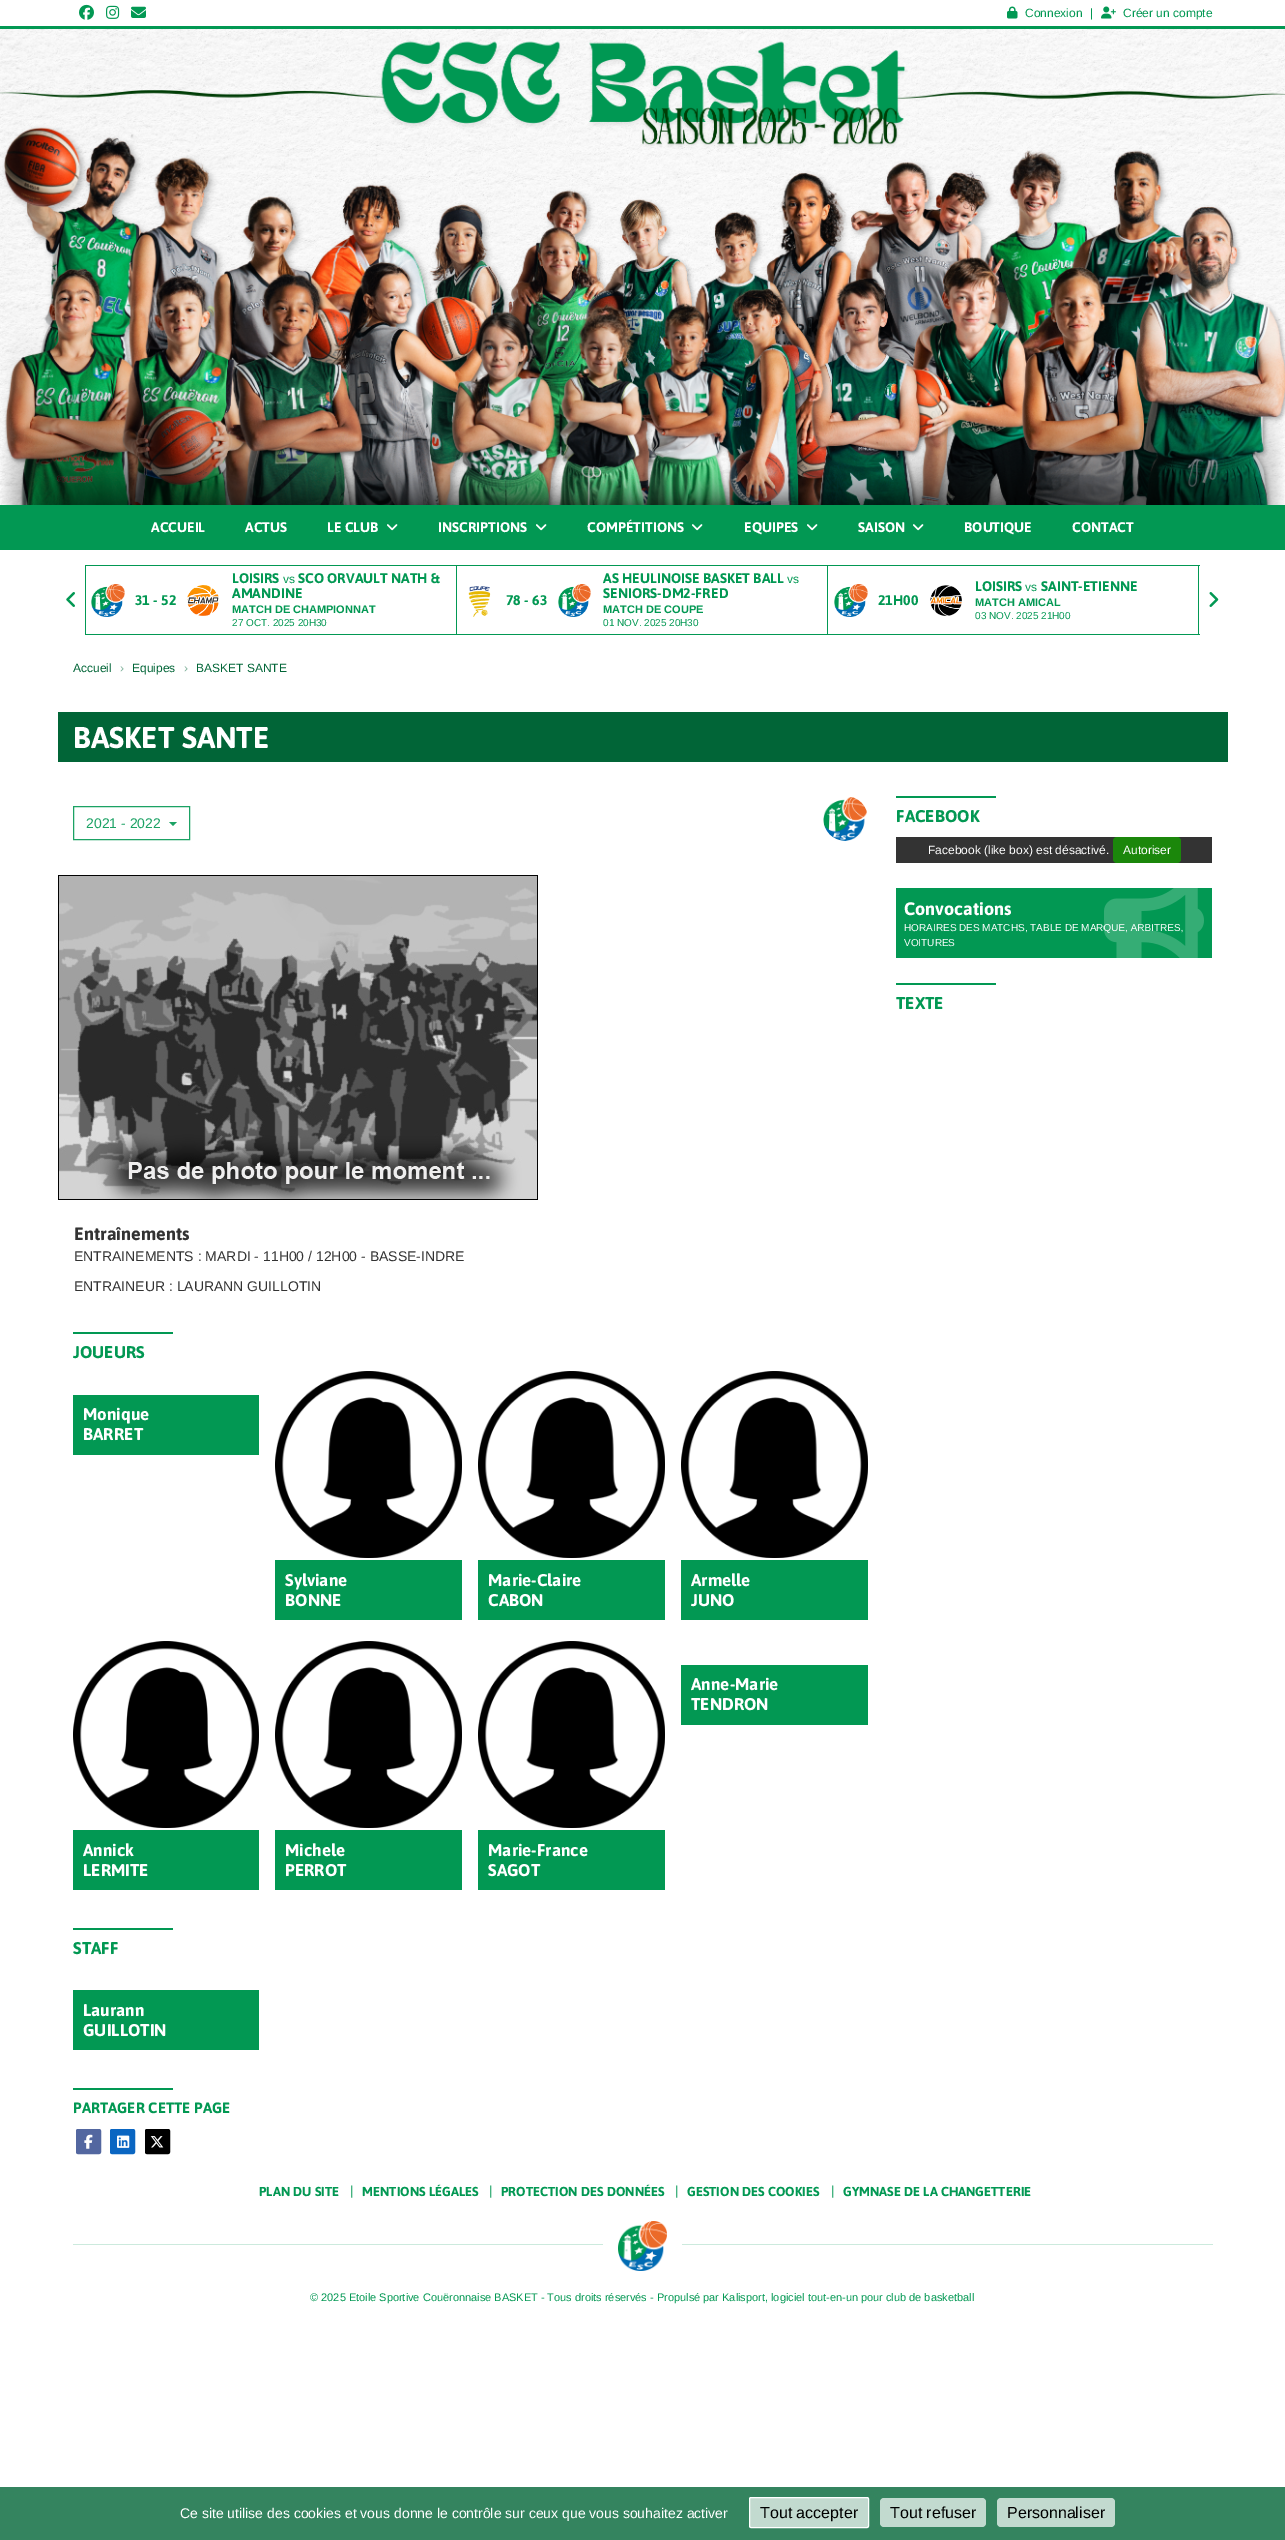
%!PS
<< /PageSize [1285 2540] >> setpagedevice
/rgb { 3 { 255 div 3 1 roll } repeat setrgbcolor } def
/font { [ exch dup neg 0 0 3 -1 roll 0 0 ] selectfont } def
/roundrect { 5 dict begin { /r /h /w /y /x } { exch def } forall
  x r add y moveto x w add y 2 copy h add r arct x w add y h add x 1 index r arct
  x y h add x y r arct x y 2 copy exch w add exch r arct closepath end } def
/picture { 5 dict begin { /h /w /y /x /name } { exch def } forall
  gsave x y translate w h scale
  w h 8 [w 0 0 h 0 0] name (r) file false 3 colorimage grestore end } def
0 2540 translate 1 -1 scale
4 setmiterlimit
255 255 255 rgb
0 0 1285 2540 rectfill
2 152 83 rgb
0 26 1285 3 rectfill
(img/1.rgb) 79 4 15 16 picture
(img/2.rgb) 106 5 14 14 picture
(img/3.rgb) 131 6 15 12 picture
(img/4.rgb) 1007 6 11 13 picture
(img/5.rgb) 1101 6 15 13 picture
(img/6.rgb) 0 29 1285 476 picture
0 505 1285 45 rectfill
(img/7.rgb) 387 524 11 7 picture
(img/7.rgb) 536 524 11 7 picture
(img/7.rgb) 692 524 11 7 picture
(img/7.rgb) 807 524 11 7 picture
(img/7.rgb) 913 524 11 7 picture
85 565 1 70 rectfill
(img/8.rgb) 66 592 9 15 picture
(img/9.rgb) 1209 592 10 15 picture
[
  [456 565 1 70 2 152 83]
  [86 565 370 1 2 152 83]
  [86 634 370 1 2 152 83]
] { aload pop rgb rectfill } forall
(img/10.rgb) 91 584 34 33 picture
(img/11.rgb) 187 585 32 31 picture
[
  [827 565 1 70 2 152 83]
  [457 565 370 1 2 152 83]
  [457 634 370 1 2 152 83]
] { aload pop rgb rectfill } forall
(img/12.rgb) 468 586 23 31 picture
(img/13.rgb) 558 584 33 33 picture
[
  [1198 565 1 70 2 152 83]
  [828 565 370 1 2 152 83]
  [828 634 370 1 2 152 83]
] { aload pop rgb rectfill } forall
(img/10.rgb) 834 584 34 33 picture
(img/14.rgb) 930 585 32 32 picture
[
  [1199 565 1 1 2 152 83]
  [1199 634 1 1 2 152 83]
  [58 712 1170 50 1 101 55]
] { aload pop rgb rectfill } forall
27 162 100 rgb
73.5 806.5 116 33 rectstroke
169 822 moveto 177 822 lineto 173 826 lineto closepath fill
(img/15.rgb) 823 797 44 44 picture
(img/16.rgb) 58 875 480 325 picture
2 152 83 rgb
73 1332 100 2 rectfill
73 1395 186 60 rectfill
(img/17.rgb) 275 1371 187 187 picture
275 1560 187 60 rectfill
(img/17.rgb) 478 1371 187 187 picture
478 1560 187 60 rectfill
(img/17.rgb) 681 1371 187 187 picture
681 1560 187 60 rectfill
681 1665 187 60 rectfill
(img/18.rgb) 73 1641 186 187 picture
73 1830 186 60 rectfill
(img/17.rgb) 275 1641 187 187 picture
275 1830 187 60 rectfill
(img/17.rgb) 478 1641 187 187 picture
[
  [478 1830 187 60 2 152 83]
  [73 1928 100 2 2 152 83]
  [73 1990 186 60 2 152 83]
  [73 2088 100 2 2 152 83]
] { aload pop rgb rectfill } forall
83 103 160 rgb
76.5 2129.5 24 24 1.5 roundrect gsave fill grestore
stroke
(img/19.rgb) 84 2134 9 15 picture
10 102 194 rgb
110.5 2129.5 24 24 1.5 roundrect gsave fill grestore
stroke
(img/20.rgb) 117 2135 13 13 picture
0 0 0 rgb
145.5 2129.5 24 24 1.5 roundrect gsave fill grestore
stroke
(img/21.rgb) 150 2136 14 12 picture
2 152 83 rgb
896 796 100 2 rectfill
51 51 51 rgb
896 837 316 26 rectfill
27 135 11 rgb
1113 837 68 26 4 roundrect fill
[
  [896 888 316 70 2 152 83]
  [896 983 100 2 2 152 83]
  [73 2244 1140 1 204 234 221]
  [603 2244 79 1 255 255 255]
] { aload pop rgb rectfill } forall
(img/23.rgb) 618 2221 49 50 picture
52 132 95 rgb
0 2487 1285 53 rectfill
194 218 207 rgb
749.5 2497.5 119 30 1.5 roundrect gsave fill grestore
255 255 255 rgb
stroke
194 218 207 rgb
880 2498 106 29 4 roundrect fill
997 2498 118 29 4 roundrect fill
/LiberationSans-Regular 12 font
2 152 83 rgb
[
  [(Connexion) 1025 17]
  [(|) 1090 17]
  [(Créer un compte) 1123 17]
] { aload pop moveto show } forall
/Asap-Bold 14 font
255 255 255 rgb
[
  [(ACCUEIL) 151 532]
  [(ACTUS) 245 532]
  [(LE CLUB) 327 532]
  [(INSCRIPTIONS) 438 532]
  [(COMPÉTITIONS) 587 532]
  [(EQUIPES) 744 532]
  [(SAISON) 858 532]
  [(BOUTIQUE) 964 532]
  [(CONTACT) 1072 532]
] { aload pop moveto show } forall
2 152 83 rgb
135 605 moveto (31 - 52) show
232 583 moveto (LOISIRS) show
/LiberationSans-Regular 12 font
283 583 moveto (vs) show
/Asap-Bold 14 font
298 583 moveto (SCO ORVAULT NATH &) show
232 598 moveto (AMANDINE) show
/LiberationSans-Bold 11 font
232 613 moveto (MATCH DE CHAMPIONNAT) show
/LiberationSans-Regular 10 font
232 626 moveto (27 OCT. 2025 20H30) show
/Asap-Bold 14 font
506 605 moveto (78 - 63) show
603 583 moveto (AS HEULINOISE BASKET BALL) show
/LiberationSans-Regular 12 font
787 583 moveto (vs) show
/Asap-Bold 14 font
603 598 moveto (SENIORS-DM2-FRED) show
/LiberationSans-Bold 11 font
603 613 moveto (MATCH DE COUPE) show
/LiberationSans-Regular 10 font
603 626 moveto (01 NOV. 2025 20H30) show
/Asap-Bold 14 font
878 605 moveto (21H00) show
975 591 moveto (LOISIRS) show
/LiberationSans-Regular 12 font
1025 591 moveto (vs) show
/Asap-Bold 14 font
1041 591 moveto (SAINT-ETIENNE) show
/LiberationSans-Bold 11 font
975 606 moveto (MATCH AMICAL) show
/LiberationSans-Regular 10 font
975 619 moveto (03 NOV. 2025 21H00) show
/LiberationSans-Regular 12 font
1 101 55 rgb
73 672 moveto (Accueil) show
128 178 155 rgb
120 672 moveto (›) show
1 101 55 rgb
132 672 moveto (Equipes) show
128 178 155 rgb
184 672 moveto (›) show
1 101 55 rgb
196 672 moveto (BASKET SANTE) show
/Asap-Bold 30 font
255 255 255 rgb
73 748 moveto (BASKET SANTE) show
/LiberationSans-Regular 14 font
27 162 100 rgb
86 828 moveto (2021 - 2022) show
/Asap-Bold 18 font
51 51 51 rgb
74 1240 moveto (Entraînements) show
/LiberationSans-Regular 14 font
74 1261 moveto (ENTRAINEMENTS : MARDI - 11H00 / 12H00 - BASSE-INDRE) show
74 1291 moveto (ENTRAINEUR : LAURANN GUILLOTIN) show
/Asap-Bold 17 font
2 152 83 rgb
73 1358 moveto (JOUEURS) show
255 255 255 rgb
[
  [(Monique) 83 1420]
  [(BARRET) 83 1440]
  [(Sylviane) 285 1586]
  [(BONNE) 285 1606]
  [(Marie-Claire) 488 1586]
  [(CABON) 488 1606]
  [(Armelle) 691 1586]
  [(JUNO) 691 1606]
  [(Anne-Marie) 691 1690]
  [(TENDRON) 691 1710]
  [(Annick) 83 1856]
  [(LERMITE) 83 1876]
  [(Michele) 285 1856]
  [(PERROT) 285 1876]
  [(Marie-France) 488 1856]
  [(SAGOT) 488 1876]
] { aload pop moveto show } forall
2 152 83 rgb
73 1954 moveto (STAFF) show
255 255 255 rgb
83 2016 moveto (Laurann) show
83 2036 moveto (GUILLOTIN) show
/Asap-Bold 15 font
2 152 83 rgb
73 2113 moveto (PARTAGER CETTE PAGE) show
/Asap-Bold 17 font
896 822 moveto (FACEBOOK) show
/LiberationSans-Regular 12 font
255 255 255 rgb
928 854 moveto (Facebook \(like box\) est désactivé.) show
1123 854 moveto (Autoriser) show
/Asap-Bold 18 font
904 915 moveto (Convocations) show
/LiberationSans-Regular 10 font
904 931 moveto (HORAIRES DES MATCHS, TABLE DE MARQUE, ARBITRES,) show
(img/22.rgb) 1104 888 100 70 picture
904 946 moveto (VOITURES) show
/Asap-Bold 17 font
2 152 83 rgb
896 1009 moveto (TEXTE) show
/Asap-Bold 13 font
259 2196 moveto (PLAN DU SITE) show
/LiberationSans-Regular 13 font
350 2195 moveto (|) show
/Asap-Bold 13 font
362 2196 moveto (MENTIONS LÉGALES) show
/LiberationSans-Regular 13 font
489 2195 moveto (|) show
/Asap-Bold 13 font
501 2196 moveto (PROTECTION DES DONNÉES) show
/LiberationSans-Regular 13 font
675 2195 moveto (|) show
/Asap-Bold 13 font
687 2196 moveto (GESTION DES COOKIES) show
/LiberationSans-Regular 13 font
831 2195 moveto (|) show
/Asap-Bold 13 font
843 2196 moveto (GYMNASE DE LA CHANGETTERIE) show
/LiberationSans-Regular 11 font
310 2301 moveto (© 2025 Etoile Sportive Couëronnaise BASKET - Tous droits réservés - Propulsé par Kalisport, logiciel tout-en-un pour club de basketball) show
/LiberationSans-Regular 14 font
255 255 255 rgb
180 2518 moveto (Ce site utilise des cookies et vous donne le contrôle sur ceux que vous souhaitez activer) show
/LiberationSans-Regular 16 font
0 0 0 rgb
[
  [(Tout accepter) 760 2518]
  [(Tout refuser) 890 2518]
  [(Personnaliser) 1007 2518]
] { aload pop moveto show } forall
showpage
